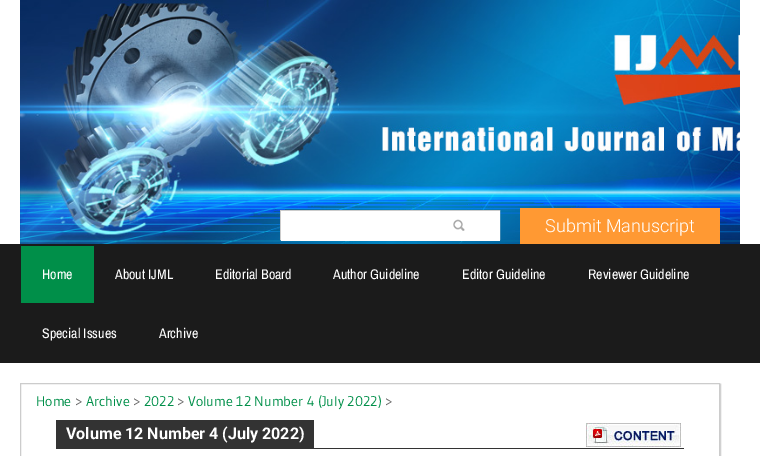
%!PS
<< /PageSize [760 456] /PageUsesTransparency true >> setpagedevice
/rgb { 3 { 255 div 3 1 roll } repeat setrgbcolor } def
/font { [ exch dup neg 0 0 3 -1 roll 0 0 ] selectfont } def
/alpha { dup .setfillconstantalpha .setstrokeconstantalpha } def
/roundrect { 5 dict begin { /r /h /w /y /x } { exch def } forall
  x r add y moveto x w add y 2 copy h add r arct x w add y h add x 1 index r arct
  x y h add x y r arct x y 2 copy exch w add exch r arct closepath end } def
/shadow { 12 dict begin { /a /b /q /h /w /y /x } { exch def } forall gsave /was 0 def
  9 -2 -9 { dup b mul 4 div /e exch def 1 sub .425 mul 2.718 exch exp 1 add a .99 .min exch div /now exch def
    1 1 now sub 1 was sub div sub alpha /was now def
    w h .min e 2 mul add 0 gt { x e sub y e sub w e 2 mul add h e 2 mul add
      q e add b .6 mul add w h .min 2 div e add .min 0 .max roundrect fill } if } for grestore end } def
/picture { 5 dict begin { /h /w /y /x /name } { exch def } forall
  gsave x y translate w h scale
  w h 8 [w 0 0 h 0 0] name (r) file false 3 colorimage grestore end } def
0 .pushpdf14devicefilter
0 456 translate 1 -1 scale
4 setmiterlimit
255 255 255 rgb
0 0 760 456 rectfill
(img/1.rgb) 20 0 720 244 picture
204 204 204 rgb
280.5 210.5 219 29 rectstroke
255 255 255 rgb
281 211 219 30 rectfill
(img/2.rgb) 453 219 12 12 picture
[
  [520 208 200 36 255 153 51]
  [0 244 760 119 27 27 27]
  [21 246 73 57 0 143 73]
] { aload pop rgb rectfill } forall
gsave
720 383 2 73 rectclip
204 204 204 rgb
21 384 700 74 0 0.5 1 shadow
grestore
204 204 204 rgb
20.5 383.5 699 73 rectstroke
51 51 51 rgb
56 420 258 28 rectfill
(img/3.rgb) 586 423 95 24 picture
56 448 628 1 rectfill
/Roboto-Light 18 font
255 255 255 rgb
545 232 moveto (Submit Manuscript) show
/ArchivoNarrow-Regular 14 font
[
  [(Home) 42 279]
  [(About IJML) 115 279]
  [(Editorial Board) 215 279]
  [(Author Guideline) 333 279]
  [(Editor Guideline) 462 279]
  [(Reviewer Guideline) 588 279]
  [(Special Issues) 42 338]
  [(Archive) 159 338]
] { aload pop moveto show } forall
/Gudea-Regular 14 font
0 143 73 rgb
36 406 moveto (Home) show
101 101 101 rgb
75 406 moveto (>) show
0 143 73 rgb
86 406 moveto (Archive) show
101 101 101 rgb
133 406 moveto (>) show
0 143 73 rgb
144 406 moveto (2022) show
101 101 101 rgb
177 406 moveto (>) show
0 143 73 rgb
188 406 moveto (Volume 12 Number 4 \(July 2022\)) show
101 101 101 rgb
385 406 moveto (>) show
/Roboto-Bold 16 font
255 255 255 rgb
66 439 moveto (Volume 12 Number 4 \(July 2022\)) show
.poppdf14devicefilter showpage
